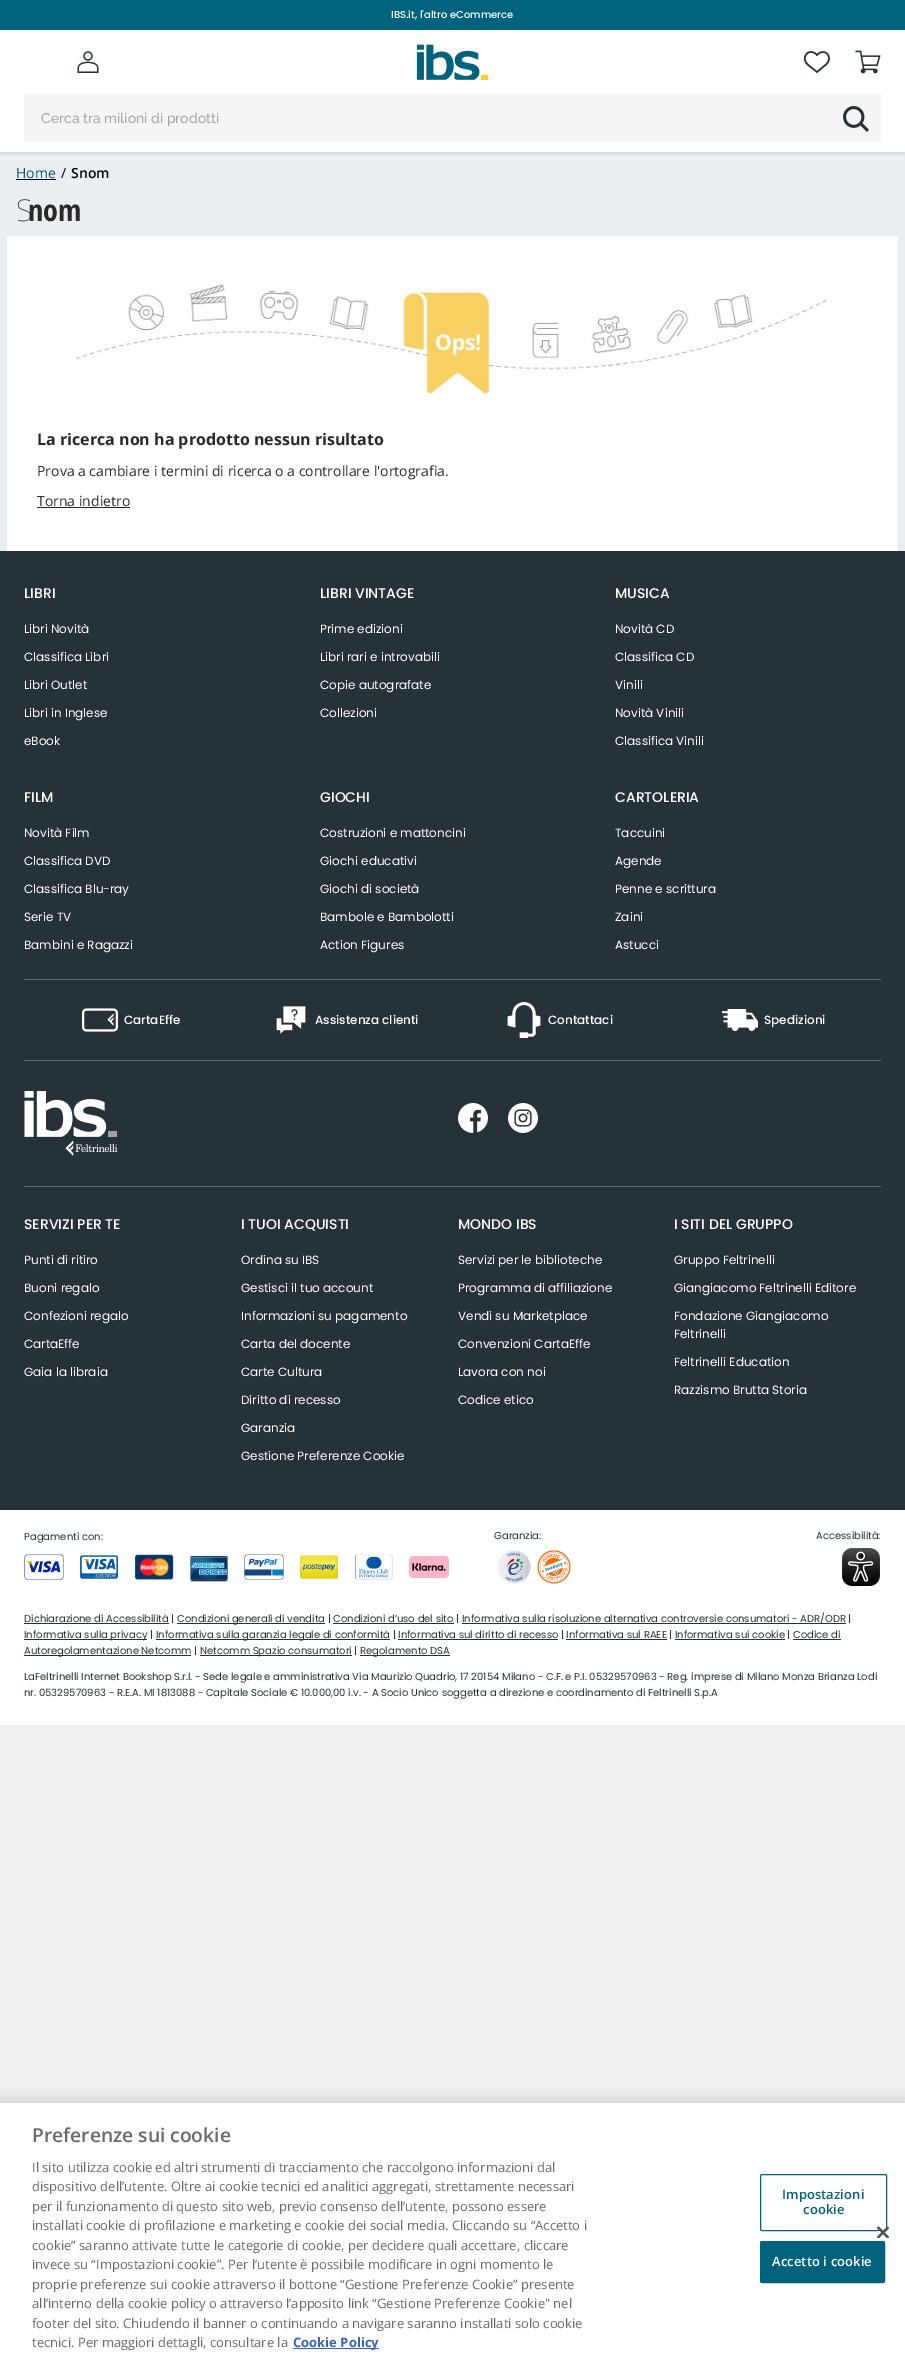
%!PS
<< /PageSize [905 2363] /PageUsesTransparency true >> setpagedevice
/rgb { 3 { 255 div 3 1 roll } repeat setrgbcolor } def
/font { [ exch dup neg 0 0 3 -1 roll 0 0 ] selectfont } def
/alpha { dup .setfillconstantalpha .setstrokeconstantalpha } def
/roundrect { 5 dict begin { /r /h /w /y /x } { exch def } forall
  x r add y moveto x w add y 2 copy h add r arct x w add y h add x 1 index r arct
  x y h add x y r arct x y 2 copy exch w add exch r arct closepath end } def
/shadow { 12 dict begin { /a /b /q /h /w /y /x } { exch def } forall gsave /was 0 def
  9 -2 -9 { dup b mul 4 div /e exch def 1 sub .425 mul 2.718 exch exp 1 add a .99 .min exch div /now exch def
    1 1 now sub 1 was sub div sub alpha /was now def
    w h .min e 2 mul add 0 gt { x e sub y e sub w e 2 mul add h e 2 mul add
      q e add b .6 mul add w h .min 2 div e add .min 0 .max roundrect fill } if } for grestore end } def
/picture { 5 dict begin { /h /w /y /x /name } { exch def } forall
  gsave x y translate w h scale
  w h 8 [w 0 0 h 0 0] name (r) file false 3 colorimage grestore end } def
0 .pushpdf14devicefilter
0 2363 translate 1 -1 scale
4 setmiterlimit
241 241 241 rgb
0 0 905 2363 rectfill
255 255 255 rgb
0 30 905 122 rectfill
235 238 240 rgb
0 152 905 399 rectfill
gsave
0 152 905 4 rectclip
0 0 0 rgb
0 2 905 152 0 2 0.1 shadow
grestore
0 98 125 rgb
0 0 905 30 rectfill
(img/1.rgb) 77 51 22 22 picture
(img/2.rgb) 416 44 72 36 picture
38 50 56 rgb
1.5 setlinewidth
817 72 moveto 814 69.5 808 65.5 806 62.5 curveto 801.5 55 810.5 47.5 817 55 curveto 824.5 46.5 834.5 57.5 825.5 65 curveto closepath stroke
(img/3.rgb) 855 50 26 24 picture
245 245 245 rgb
24 94 857 48 rectfill
(img/4.rgb) 843 106 26 26 picture
0 0 0 rgb
16 179 40 1 rectfill
255 255 255 rgb
7 236 891 315 rectfill
(img/5.rgb) 76 284 754 111 picture
[
  [37 507 93 1 41 41 41]
  [0 551 905 959 38 50 56]
  [24 979 857 1 97 109 114]
  [24 1060 857 1 97 109 114]
] { aload pop rgb rectfill } forall
(img/6.rgb) 82 1008 36 24 picture
(img/7.rgb) 276 1006 30 28 picture
(img/8.rgb) 507 1002 34 36 picture
(img/9.rgb) 722 1009 36 22 picture
24 1186 857 1 rectfill
(img/10.rgb) 24 1091 94 65 picture
(img/11.rgb) 458 1103 30 30 picture
(img/12.rgb) 508 1103 30 30 picture
255 255 255 rgb
0 1510 905 215 rectfill
(img/13.rgb) 24 1554 40 26 picture
(img/14.rgb) 80 1555 38 24 picture
(img/15.rgb) 134 1554 40 26 picture
(img/16.rgb) 190 1555 38 27 picture
(img/17.rgb) 244 1554 40 26 picture
(img/18.rgb) 300 1555 38 24 picture
(img/19.rgb) 354 1554 39 26 picture
(img/20.rgb) 409 1556 40 22 picture
(img/21.rgb) 497 1550 74 34 picture
(img/22.rgb) 841 1547 40 40 picture
[
  [24 1623 145 1 38 50 56]
  [177 1623 148 1 38 50 56]
  [462 1623 384 1 38 50 56]
  [333 1623 121 1 38 50 56]
  [24 1639 123 1 38 50 56]
  [156 1639 234 1 38 50 56]
  [398 1639 160 1 38 50 56]
  [566 1639 101 1 38 50 56]
  [675 1639 110 1 38 50 56]
  [793 1639 48 1 38 50 56]
  [24 1655 167 1 38 50 56]
  [200 1655 152 1 38 50 56]
  [360 1655 90 1 38 50 56]
] { aload pop rgb rectfill } forall
0 0 0 rgb
0 2103 905 260 0 9 0.2 shadow
255 255 255 rgb
0 2103 905 260 rectfill
56 96 190 rgb
293 2348 86 1 rectfill
0 98 125 rgb
1 setlinewidth
760.5 2174.5 126 56 1.5 roundrect stroke
760.5 2241.5 124 41 1.5 roundrect gsave fill grestore
stroke
(img/23.rgb) 877 2226 12 12 picture
/Poppins-Medium 10 font
255 255 255 rgb
391 18 moveto (IBS.it, l'altro eCommerce) show
/Raleway-Medium 14 font
162 167 169 rgb
41 123 moveto (Cerca tra milioni di prodotti) show
/OpenSans-Regular 14 font
6 91 108 rgb
16 178 moveto (Home) show
0 0 0 rgb
61 178 moveto (/) show
/OpenSans-SemiBold 14 font
71 178 moveto (Snom) show
/NotoSans-Thin 30 font
41 41 41 rgb
16 221 moveto (S) show
/OpenSansCondensed-Bold 30 font
28 221 moveto (nom) show
/OpenSans-Bold 16 font
37 445 moveto (La ricerca non ha prodotto nessun risultato) show
/OpenSans-Regular 14 font
37 476 moveto (Prova a cambiare i termini di ricerca o a controllare l'ortografia.) show
37 506 moveto (Torna indietro) show
/Poppins-Medium 14 font
255 255 255 rgb
24 598 moveto (LIBRI) show
/Poppins-Regular 12 font
[
  [(Libri Novità) 24 633]
  [(Classifica Libri) 24 661]
  [(Libri Outlet) 24 689]
  [(Libri in Inglese) 24 717]
  [(eBook) 24 745]
] { aload pop moveto show } forall
/Poppins-Medium 14 font
320 598 moveto (LIBRI VINTAGE) show
/Poppins-Regular 12 font
[
  [(Prime edizioni) 320 633]
  [(Libri rari e introvabili) 320 661]
  [(Copie autografate) 320 689]
  [(Collezioni) 320 717]
] { aload pop moveto show } forall
/Poppins-Medium 14 font
615 598 moveto (MUSICA) show
/Poppins-Regular 12 font
[
  [(Novità CD) 615 633]
  [(Classifica CD) 615 661]
  [(Vinili) 615 689]
  [(Novità Vinili) 615 717]
  [(Classifica Vinili) 615 745]
] { aload pop moveto show } forall
/Poppins-Medium 14 font
24 802 moveto (FILM) show
/Poppins-Regular 12 font
[
  [(Novità Film) 24 837]
  [(Classifica DVD) 24 865]
  [(Classifica Blu-ray) 24 893]
  [(Serie TV) 24 921]
  [(Bambini e Ragazzi) 24 949]
] { aload pop moveto show } forall
/Poppins-Medium 14 font
320 802 moveto (GIOCHI) show
/Poppins-Regular 12 font
[
  [(Costruzioni e mattoncini) 320 837]
  [(Giochi educativi) 320 865]
  [(Giochi di società) 320 893]
  [(Bambole e Bambolotti) 320 921]
  [(Action Figures) 320 949]
] { aload pop moveto show } forall
/Poppins-Medium 14 font
615 802 moveto (CARTOLERIA) show
/Poppins-Regular 12 font
[
  [(Taccuini) 615 837]
  [(Agende) 615 865]
  [(Penne e scrittura) 615 893]
  [(Zaini) 615 921]
  [(Astucci) 615 949]
] { aload pop moveto show } forall
/Poppins-Medium 12 font
[
  [(CartaEffe) 124 1024]
  [(Assistenza clienti) 315 1024]
  [(Contattaci) 548 1024]
  [(Spedizioni) 764 1024]
] { aload pop moveto show } forall
/Poppins-Medium 14 font
24 1229 moveto (SERVIZI PER TE) show
/Poppins-Regular 12 font
[
  [(Punti di ritiro) 24 1264]
  [(Buoni regalo) 24 1292]
  [(Confezioni regalo) 24 1320]
  [(CartaEffe) 24 1348]
  [(Gaia la libraia) 24 1376]
] { aload pop moveto show } forall
/Poppins-Medium 14 font
241 1229 moveto (I TUOI ACQUISTI) show
/Poppins-Regular 12 font
[
  [(Ordina su IBS) 241 1264]
  [(Gestisci il tuo account) 241 1292]
  [(Informazioni su pagamento) 241 1320]
  [(Carta del docente) 241 1348]
  [(Carte Cultura) 241 1376]
  [(Diritto di recesso) 241 1404]
  [(Garanzia) 241 1432]
  [(Gestione Preferenze Cookie) 241 1460]
] { aload pop moveto show } forall
/Poppins-Medium 14 font
458 1229 moveto (MONDO IBS) show
/Poppins-Regular 12 font
[
  [(Servizi per le biblioteche) 458 1264]
  [(Programma di affiliazione) 458 1292]
  [(Vendi su Marketplace) 458 1320]
  [(Convenzioni CartaEffe) 458 1348]
  [(Lavora con noi) 458 1376]
  [(Codice etico) 458 1404]
] { aload pop moveto show } forall
/Poppins-Medium 14 font
674 1229 moveto (I SITI DEL GRUPPO) show
/Poppins-Regular 12 font
[
  [(Gruppo Feltrinelli) 674 1264]
  [(Giangiacomo Feltrinelli Editore) 674 1292]
  [(Fondazione Giangiacomo) 674 1320]
  [(Feltrinelli) 674 1338]
  [(Feltrinelli Education) 674 1366]
  [(Razzismo Brutta Storia) 674 1394]
] { aload pop moveto show } forall
/Poppins-Regular 10 font
38 50 56 rgb
[
  [(Pagamenti con:) 24 1540]
  [(Garanzia:) 494 1539]
  [(Accessibilità:) 816 1539]
  [(Dichiarazione di Accessibilità |) 24 1622]
  [(Condizioni generali di vendita | Condizioni d’uso del sito |) 177 1622]
  [(Informativa sulla risoluzione alternativa controversie consumatori - ADR/ODR |) 462 1622]
  [(Informativa sulla privacy |) 24 1638]
  [(Informativa sulla garanzia legale di conformità | Informativa sul diritto di recesso | Informativa sul RAEE | Informativa sui cookie | Codice di) 156 1638]
  [(Autoregolamentazione Netcomm |) 24 1654]
  [(Netcomm Spazio consumatori |) 200 1654]
  [(Regolamento DSA) 360 1654]
  [(LaFeltrinelli Internet Bookshop S.r.l. - Sede legale e amministrativa Via Maurizio Quadrio, 17 20154 Milano - C.F. e P.I. 05329570963 - Reg. imprese di Milano Monza Brianza Lodi) 24 1680]
  [(nr. 05329570963 - R.E.A. MI 1813088 - Capitale Sociale € 10.000,00 i.v. - A Socio Unico soggetta a direzione e coordinamento di Feltrinelli S.p.A) 24 1696]
] { aload pop moveto show } forall
/OpenSans-SemiBold 19.25 font
105 105 105 rgb
32 2142 moveto (Preferenze sui cookie) show
/OpenSans-Regular 13 font
[
  [(Il sito utilizza cookie ed altri strumenti di tracciamento che raccolgono informazioni dal) 32 2172]
  [(dispositivo dell’utente. Oltre ai cookie tecnici ed analitici aggregati, strettamente necessari) 32 2191]
  [(per il funzionamento di questo sito web, previo consenso dell’utente, possono essere) 32 2211]
  [(installati cookie di profilazione e marketing e cookie dei social media. Cliccando su “Accetto i) 32 2230]
  [(cookie” saranno attivate tutte le categorie di cookie, per decidere quali accettare, cliccare) 32 2250]
  [(invece su “Impostazioni cookie”. Per l’utente è possibile modificare in ogni momento le) 32 2269]
  [(proprie preferenze sui cookie attraverso il bottone “Gestione Preferenze Cookie” presente) 32 2289]
  [(all’interno della cookie policy o attraverso l’apposito link “Gestione Preferenze Cookie" nel) 32 2308]
  [(footer del sito. Chiudendo il banner o continuando a navigare saranno installati solo cookie) 32 2328]
  [(tecnici. Per maggiori dettagli, consultare la) 32 2347]
] { aload pop moveto show } forall
/OpenSans-Bold 13 font
56 96 190 rgb
293 2347 moveto (Cookie Policy) show
/OpenSans-SemiBold 13 font
0 98 125 rgb
782 2199 moveto 0.1 0 (Impostazioni) ashow
803 2214 moveto 0.1 0 (cookie) ashow
255 255 255 rgb
772 2266 moveto 0.1 0 (Accetto i cookie) ashow
.poppdf14devicefilter showpage
